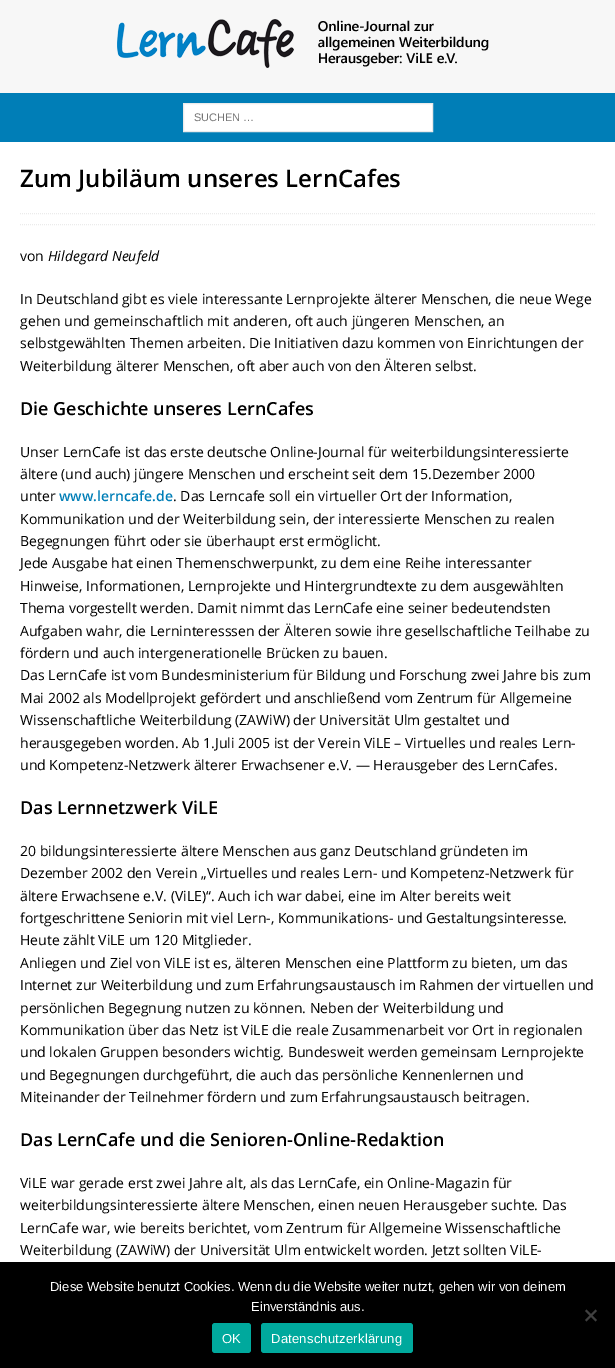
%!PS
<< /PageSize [615 1368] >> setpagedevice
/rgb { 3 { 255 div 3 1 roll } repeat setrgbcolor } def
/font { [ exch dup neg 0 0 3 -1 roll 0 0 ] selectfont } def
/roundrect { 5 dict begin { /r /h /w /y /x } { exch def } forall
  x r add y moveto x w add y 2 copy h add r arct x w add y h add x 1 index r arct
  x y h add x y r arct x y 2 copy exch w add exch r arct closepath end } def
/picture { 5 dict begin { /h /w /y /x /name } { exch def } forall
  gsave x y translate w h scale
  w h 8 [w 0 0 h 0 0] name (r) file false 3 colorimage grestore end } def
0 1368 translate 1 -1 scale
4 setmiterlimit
247 247 247 rgb
0 0 615 1368 rectfill
(img/1.rgb) 117 19 372 49 picture
0 126 183 rgb
0 93 615 49 rectfill
255 255 255 rgb
183.5 103.5 moveto 432.5 103.5 lineto 432.5 131.5 lineto 183.5 131.5 lineto closepath gsave fill grestore
235 235 235 rgb
stroke
255 255 255 rgb
0 142 615 1120 rectfill
235 235 235 rgb
[1 1] 0 setdash
20 213.5 moveto 595 213.5 lineto stroke
20 224.5 moveto 595 224.5 lineto stroke
0 0 0 rgb
0 1262 615 106 rectfill
64 64 64 rgb
595.5 1309.5 moveto 597 1311 lineto 586.5 1321.5 lineto 585 1320 lineto closepath fill
585 1311 moveto 586.5 1309.5 lineto 597 1320 lineto 595.5 1321.5 lineto closepath fill
0 169 157 rgb
212 1323 39 30 3 roundrect fill
261 1323 152 30 3 roundrect fill
/LiberationSans-Regular 11 font
117 117 117 rgb
194 121 moveto (SUCHEN …) show
/OpenSans-SemiBold 24 font
0 0 0 rgb
20 187 moveto (Zum Jubiläum unseres LernCafes) show
/OpenSans-Regular 14 font
20 261 moveto (von) show
/OpenSans-Italic 14 font
48 261 moveto (Hildegard Neufeld) show
/OpenSans-Regular 14 font
[
  [(In Deutschland gibt es viele interessante Lernprojekte älterer Menschen, die neue Wege) 20 304]
  [(gehen und gemeinschaftlich mit anderen, oft auch jüngeren Menschen, an) 20 326]
  [(selbstgewählten Themen arbeiten. Die Initiativen dazu kommen von Einrichtungen der) 20 348]
  [(Weiterbildung älterer Menschen, oft aber auch von den Älteren selbst.) 20 371]
] { aload pop moveto show } forall
/OpenSans-SemiBold 18 font
20 415 moveto (Die Geschichte unseres LernCafes) show
/OpenSans-Regular 14 font
[
  [(Unser LernCafe ist das erste deutsche Online-Journal für weiterbildungsinteressierte) 20 457]
  [(ältere \(und auch\) jüngere Menschen und erscheint seit dem 15.Dezember 2000) 20 479]
  [(unter) 20 501]
] { aload pop moveto show } forall
/OpenSans-SemiBold 14 font
0 126 183 rgb
59 501 moveto (www.lerncafe.de) show
/OpenSans-Regular 14 font
0 0 0 rgb
[
  [(. Das Lerncafe soll ein virtueller Ort der Information,) 173 501]
  [(Kommunikation und der Weiterbildung sein, der interessierte Menschen zu realen) 20 524]
  [(Begegnungen führt oder sie überhaupt erst ermöglicht.) 20 546]
  [(Jede Ausgabe hat einen Themenschwerpunkt, zu dem eine Reihe interessanter) 20 568]
  [(Hinweise, Informationen, Lernprojekte und Hintergrundtexte zu dem ausgewählten) 20 591]
  [(Thema vorgestellt werden. Damit nimmt das LernCafe eine seiner bedeutendsten) 20 613]
  [(Aufgaben wahr, die Lerninteresssen der Älteren sowie ihre gesellschaftliche Teilhabe zu) 20 636]
  [(fördern und auch intergenerationelle Brücken zu bauen.) 20 658]
  [(Das LernCafe ist vom Bundesministerium für Bildung und Forschung zwei Jahre bis zum) 20 680]
  [(Mai 2002 als Modellprojekt gefördert und anschließend vom Zentrum für Allgemeine) 20 703]
  [(Wissenschaftliche Weiterbildung \(ZAWiW\) der Universität Ulm gestaltet und) 20 725]
  [(herausgegeben worden. Ab 1.Juli 2005 ist der Verein ViLE – Virtuelles und reales Lern-) 20 748]
  [(und Kompetenz-Netzwerk älterer Erwachsener e.V. — Herausgeber des LernCafes.) 20 770]
] { aload pop moveto show } forall
/OpenSans-SemiBold 18 font
20 814 moveto (Das Lernnetzwerk ViLE) show
/OpenSans-Regular 14 font
[
  [(20 bildungsinteressierte ältere Menschen aus ganz Deutschland gründeten im) 20 856]
  [(Dezember 2002 den Verein „Virtuelles und reales Lern- und Kompetenz-Netzwerk für) 20 878]
  [(ältere Erwachsene e.V. \(ViLE\)“. Auch ich war dabei, eine im Alter bereits weit) 20 901]
  [(fortgeschrittene Seniorin mit viel Lern-, Kommunikations- und Gestaltungsinteresse.) 20 923]
  [(Heute zählt ViLE um 120 Mitglieder.) 20 945]
  [(Anliegen und Ziel von ViLE ist es, älteren Menschen eine Plattform zu bieten, um das) 20 968]
  [(Internet zur Weiterbildung und zum Erfahrungsaustausch im Rahmen der virtuellen und) 20 990]
  [(persönlichen Begegnung nutzen zu können. Neben der Weiterbildung und) 20 1013]
  [(Kommunikation über das Netz ist ViLE die reale Zusammenarbeit vor Ort in regionalen) 20 1035]
  [(und lokalen Gruppen besonders wichtig. Bundesweit werden gemeinsam Lernprojekte) 20 1057]
  [(und Begegnungen durchgeführt, die auch das persönliche Kennenlernen und) 20 1080]
  [(Miteinander der Teilnehmer fördern und zum Erfahrungsaustausch beitragen.) 20 1102]
] { aload pop moveto show } forall
/OpenSans-SemiBold 18 font
20 1146 moveto (Das LernCafe und die Senioren-Online-Redaktion) show
/OpenSans-Regular 14 font
[
  [(ViLE war gerade erst zwei Jahre alt, als das LernCafe, ein Online-Magazin für) 20 1188]
  [(weiterbildungsinteressierte ältere Menschen, einen neuen Herausgeber suchte. Das) 20 1210]
  [(LernCafe war, wie bereits berichtet, vom Zentrum für Allgemeine Wissenschaftliche) 20 1233]
  [(Weiterbildung \(ZAWiW\) der Universität Ulm entwickelt worden. Jetzt sollten ViLE-) 20 1255]
] { aload pop moveto show } forall
/LiberationSans-Regular 13 font
255 255 255 rgb
50 1291 moveto (Diese Website benutzt Cookies. Wenn du die Website weiter nutzt, gehen wir von deinem) show
251 1311 moveto (Einverständnis aus.) show
222 1343 moveto 0.25 0 (OK) ashow
271 1343 moveto 0.25 0 (Datenschutzerklärung) ashow
showpage
